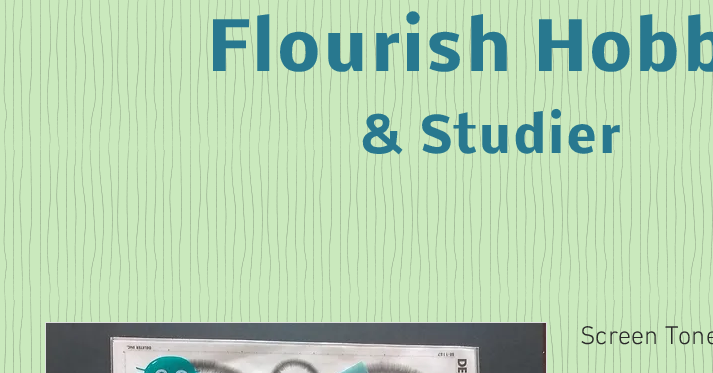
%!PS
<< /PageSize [713 373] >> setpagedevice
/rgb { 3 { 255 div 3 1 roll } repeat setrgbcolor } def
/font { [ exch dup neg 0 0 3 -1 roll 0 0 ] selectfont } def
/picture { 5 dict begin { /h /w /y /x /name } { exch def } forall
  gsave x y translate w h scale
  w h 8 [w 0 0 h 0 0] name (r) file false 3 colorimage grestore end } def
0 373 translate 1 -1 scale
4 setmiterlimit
202 233 189 rgb
0 0 713 373 rectfill
(img/1.rgb) 3 0 710 373 picture
221 221 221 rgb
45.5 322.5 501 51 rectstroke
(img/2.rgb) 46 323 500 50 picture
/Nobile-Bold 65 font
40 120 143 rgb
208 71 moveto 3.25 0 (Flourish Hobb) ashow
/Nobile-Bold 48 font
359 153 moveto 2.5 0 (& Studier) ashow
/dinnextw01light-Light 26 font
42 42 42 rgb
580 344 moveto (Screen Tone) show
showpage
